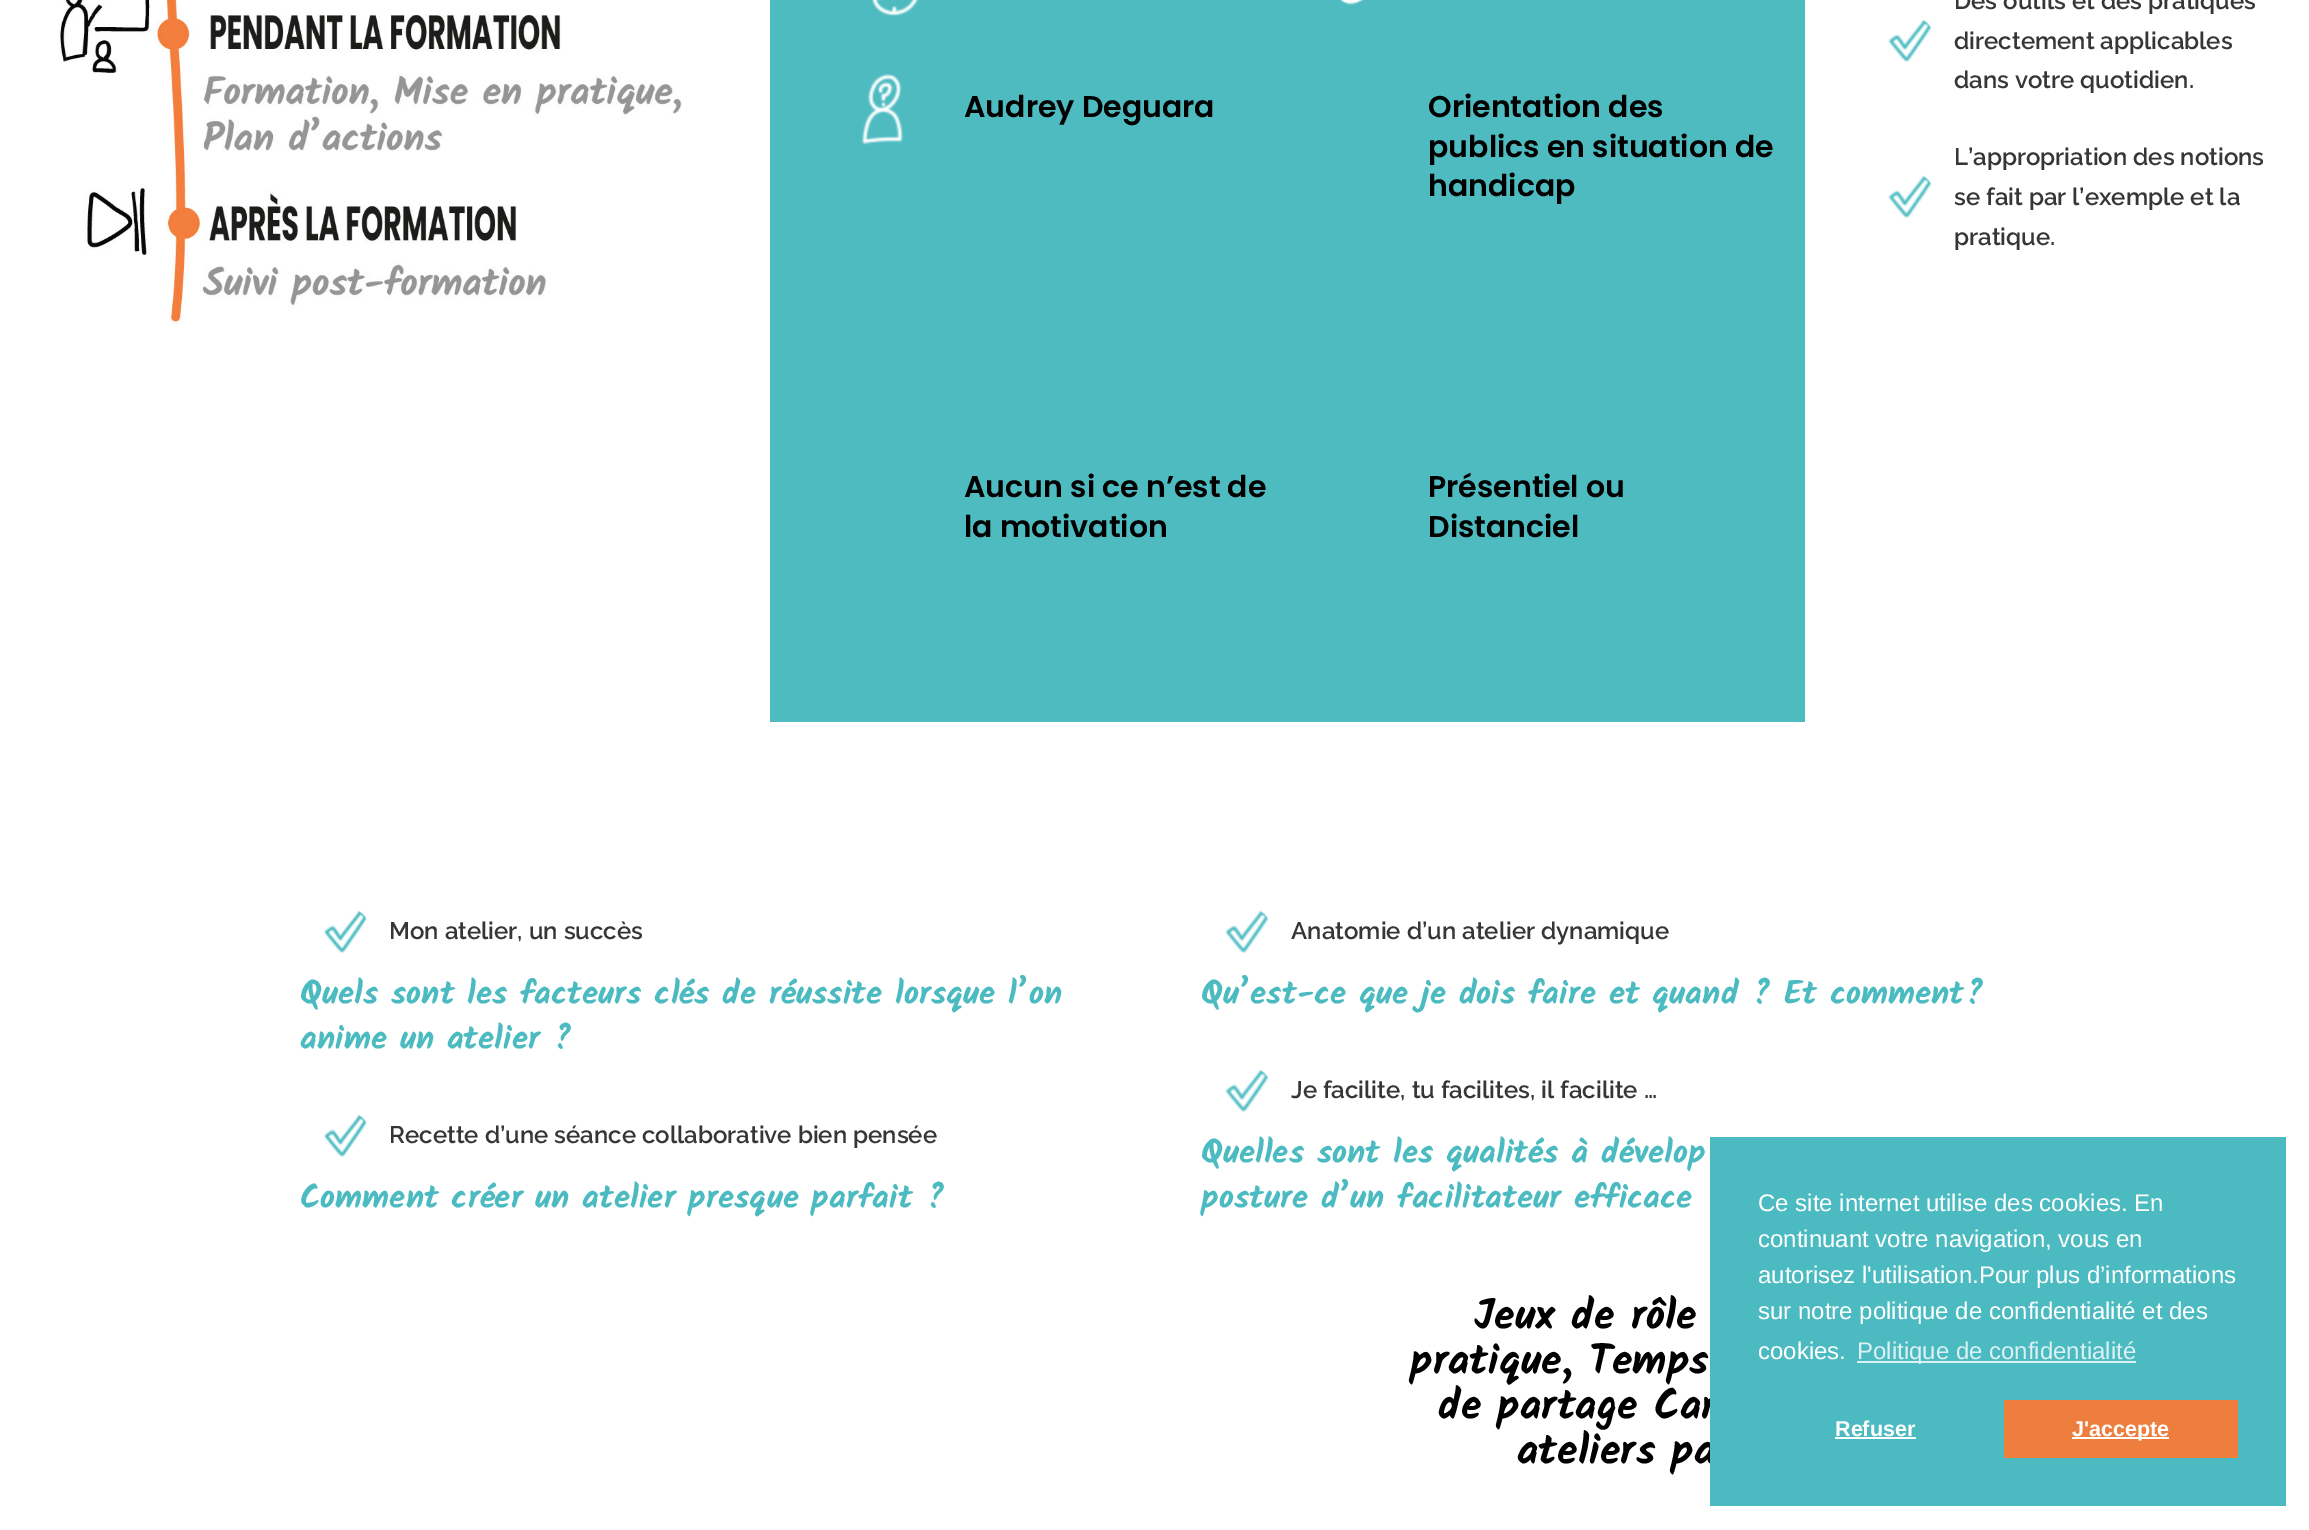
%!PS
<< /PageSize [2309 1530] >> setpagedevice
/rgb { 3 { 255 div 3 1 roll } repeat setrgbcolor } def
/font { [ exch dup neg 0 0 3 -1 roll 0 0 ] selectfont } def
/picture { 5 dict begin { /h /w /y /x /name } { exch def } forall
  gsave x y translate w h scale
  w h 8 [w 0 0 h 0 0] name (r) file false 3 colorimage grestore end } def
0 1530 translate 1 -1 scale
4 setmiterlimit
255 255 255 rgb
0 0 2309 1530 rectfill
(img/1.rgb) 58 0 624 326 picture
78 187 193 rgb
770 0 1035 722 rectfill
(img/2.rgb) 872 0 47 17 picture
(img/3.rgb) 1339 0 25 5 picture
(img/4.rgb) 861 73 43 72 picture
(img/5.rgb) 1888 19 44 44 picture
(img/5.rgb) 1888 175 44 44 picture
(img/6.rgb) 324 910 43 44 picture
(img/6.rgb) 324 1114 43 44 picture
(img/5.rgb) 1225 910 44 44 picture
(img/5.rgb) 1225 1069 44 44 picture
/Poppins-SemiBold 30 font
0 0 0 rgb
[
  [(Audrey Deguara) 964 117]
  [(Orientation des) 1428 117]
  [(publics en situation de) 1428 157]
  [(handicap) 1428 196]
  [(Aucun si ce n’est de) 964 497]
  [(la motivation) 964 537]
  [(Présentiel ou) 1428 497]
  [(Distanciel) 1428 537]
] { aload pop moveto show } forall
/Raleway-SemiBold 24 font
54 54 54 rgb
[
  [(Des outils et des pratiques) 1954 9]
  [(directement applicables) 1954 49]
  [(dans votre quotidien.) 1954 88]
  [(L’appropriation des notions) 1954 165]
  [(se fait par l’exemple et la) 1954 205]
  [(pratique.) 1954 245]
  [(Mon atelier, un succès) 389 939]
] { aload pop moveto show } forall
/Kalam-Bold 33 font
76 187 193 rgb
300 1004 moveto (Quels sont les facteurs clés de réussite lorsque l’on) show
300 1049 moveto (anime un atelier ?) show
/Raleway-SemiBold 24 font
54 54 54 rgb
389 1143 moveto (Recette d’une séance collaborative bien pensée) show
/Kalam-Bold 33 font
76 187 193 rgb
300 1208 moveto (Comment créer un atelier presque parfait ?) show
/Raleway-SemiBold 24 font
54 54 54 rgb
1291 939 moveto (Anatomie d’un atelier dynamique) show
/Kalam-Bold 33 font
76 187 193 rgb
1201 1004 moveto (Qu’est-ce que je dois faire et quand ? Et comment?) show
/Raleway-SemiBold 24 font
54 54 54 rgb
1291 1098 moveto (Je facilite, tu facilites, il facilite …) show
/Kalam-Bold 33 font
76 187 193 rgb
1201 1163 moveto (Quelles sont les qualités à dévelop) show
1201 1208 moveto (posture d’un facilitateur efficace) show
/Kalam-Bold 42 font
0 0 0 rgb
[
  [(Jeux de rôle) 1474 1329]
  [(pratique, Temps) 1410 1374]
  [(de partage Car) 1438 1419]
  [(ateliers pa) 1517 1464]
] { aload pop moveto show } forall
76 187 193 rgb
1710 1137 576 369 rectfill
/LiberationSans-Regular 24 font
255 255 255 rgb
[
  [(Ce site internet utilise des cookies. En) 1758 1211]
  [(continuant votre navigation, vous en) 1758 1247]
  [(autorisez l'utilisation.Pour plus d’informations) 1758 1283]
  [(sur notre politique de confidentialité et des) 1758 1319]
  [(cookies.) 1758 1359]
] { aload pop moveto show } forall
219 241 243 rgb
1857 1361 279 2 rectfill
1857 1359 moveto (Politique de confidentialité) show
/LiberationSans-Bold 21.5 font
255 255 255 rgb
1835 1436 moveto (Refuser) show
[
  [1835 1437 81 2 255 255 255]
  [2004 1400 234 58 237 126 62]
  [2072 1437 97 2 255 255 255]
] { aload pop rgb rectfill } forall
2072 1436 moveto (J'accepte) show
showpage
